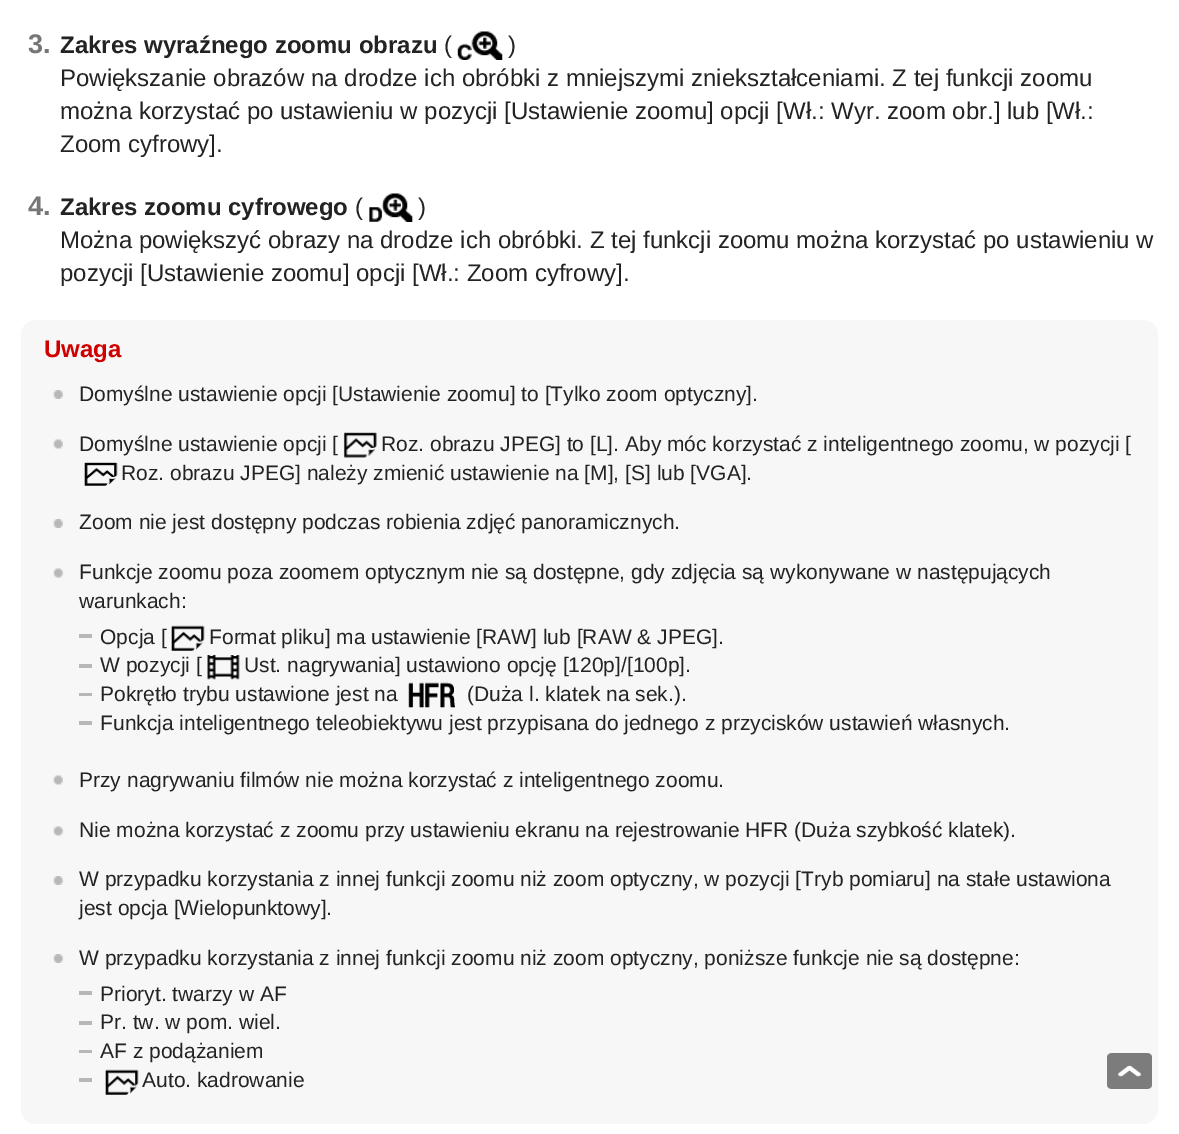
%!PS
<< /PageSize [1179 1134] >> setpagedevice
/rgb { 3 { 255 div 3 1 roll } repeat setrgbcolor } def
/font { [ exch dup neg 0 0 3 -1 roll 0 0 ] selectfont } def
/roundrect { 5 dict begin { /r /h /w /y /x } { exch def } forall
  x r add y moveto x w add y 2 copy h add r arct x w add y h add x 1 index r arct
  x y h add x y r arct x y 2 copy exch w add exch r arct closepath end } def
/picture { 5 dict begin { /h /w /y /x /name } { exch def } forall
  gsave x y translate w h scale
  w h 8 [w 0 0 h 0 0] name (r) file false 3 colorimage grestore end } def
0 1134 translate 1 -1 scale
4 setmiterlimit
255 255 255 rgb
0 0 1179 1134 rectfill
(img/1.rgb) 457 31 46 29 picture
(img/2.rgb) 369 193 44 29 picture
247 247 247 rgb
21 320 1137 804 15 roundrect fill
(img/3.rgb) 53 390 10 9 picture
(img/4.rgb) 53 439 10 10 picture
(img/5.rgb) 343 432 34 26 picture
(img/6.rgb) 84 462 34 24 picture
(img/3.rgb) 53 519 10 9 picture
(img/4.rgb) 53 568 10 10 picture
183 183 183 rgb
79 634 13 4 rectfill
(img/7.rgb) 171 625 34 26 picture
79 664 13 4 rectfill
(img/8.rgb) 207 654 33 26 picture
79 693 13 3 rectfill
(img/9.rgb) 408 682 47 26 picture
79 721 13 4 rectfill
(img/4.rgb) 53 775 10 10 picture
(img/4.rgb) 53 826 10 10 picture
(img/3.rgb) 53 876 10 9 picture
(img/3.rgb) 53 954 10 9 picture
[
  [79 991 13 4 183 183 183]
  [79 1021 13 4 183 183 183]
  [79 1050 13 3 183 183 183]
  [79 1078 13 4 183 183 183]
] { aload pop rgb rectfill } forall
(img/7.rgb) 105 1069 34 26 picture
(img/10.rgb) 1107 1053 45 36 picture
/LiberationSans-Bold 27 font
118 118 118 rgb
28 53 moveto (3.) show
/LiberationSans-Bold 24 font
35 35 35 rgb
60 53 moveto (Zakres wyraźnego zoomu obrazu) show
/LiberationSans-Regular 24 font
[
  [(\() 444 53]
  [(\)) 508 53]
  [(Powiększanie obrazów na drodze ich obróbki z mniejszymi zniekształceniami. Z tej funkcji zoomu) 60 86]
  [(można korzystać po ustawieniu w pozycji [Ustawienie zoomu] opcji [Wł.: Wyr. zoom obr.] lub [Wł.:) 60 119]
  [(Zoom cyfrowy].) 60 152]
] { aload pop moveto show } forall
/LiberationSans-Bold 27 font
118 118 118 rgb
28 215 moveto (4.) show
/LiberationSans-Bold 24 font
35 35 35 rgb
60 215 moveto (Zakres zoomu cyfrowego) show
/LiberationSans-Regular 24 font
[
  [(\() 355 215]
  [(\)) 418 215]
  [(Można powiększyć obrazy na drodze ich obróbki. Z tej funkcji zoomu można korzystać po ustawieniu w) 60 248]
  [(pozycji [Ustawienie zoomu] opcji [Wł.: Zoom cyfrowy].) 60 281]
] { aload pop moveto show } forall
/LiberationSans-Bold 24 font
209 0 0 rgb
44 357 moveto (Uwaga) show
/LiberationSans-Regular 21 font
35 35 35 rgb
[
  [(Domyślne ustawienie opcji [Ustawienie zoomu] to [Tylko zoom optyczny].) 79 401]
  [(Domyślne ustawienie opcji [) 79 451]
  [(Roz. obrazu JPEG] to [L]. Aby móc korzystać z inteligentnego zoomu, w pozycji [) 381 451]
  [(Roz. obrazu JPEG] należy zmienić ustawienie na [M], [S] lub [VGA].) 121 480]
  [(Zoom nie jest dostępny podczas robienia zdjęć panoramicznych.) 79 529]
  [(Funkcje zoomu poza zoomem optycznym nie są dostępne, gdy zdjęcia są wykonywane w następujących) 79 579]
  [(warunkach:) 79 608]
  [(Opcja [) 100 644]
  [(Format pliku] ma ustawienie [RAW] lub [RAW & JPEG].) 209 644]
  [(W pozycji [) 100 672]
  [(Ust. nagrywania] ustawiono opcję [120p]/[100p].) 244 672]
  [(Pokrętło trybu ustawione jest na) 100 701]
  [(\(Duża l. klatek na sek.\).) 467 701]
  [(Funkcja inteligentnego teleobiektywu jest przypisana do jednego z przycisków ustawień własnych.) 100 730]
  [(Przy nagrywaniu filmów nie można korzystać z inteligentnego zoomu.) 79 787]
  [(Nie można korzystać z zoomu przy ustawieniu ekranu na rejestrowanie HFR \(Duża szybkość klatek\).) 79 837]
  [(W przypadku korzystania z innej funkcji zoomu niż zoom optyczny, w pozycji [Tryb pomiaru] na stałe ustawiona) 79 886]
  [(jest opcja [Wielopunktowy].) 79 915]
  [(W przypadku korzystania z innej funkcji zoomu niż zoom optyczny, poniższe funkcje nie są dostępne:) 79 965]
  [(Prioryt. twarzy w AF) 100 1001]
  [(Pr. tw. w pom. wiel.) 100 1029]
  [(AF z podążaniem) 100 1058]
  [(Auto. kadrowanie) 142 1087]
] { aload pop moveto show } forall
showpage
